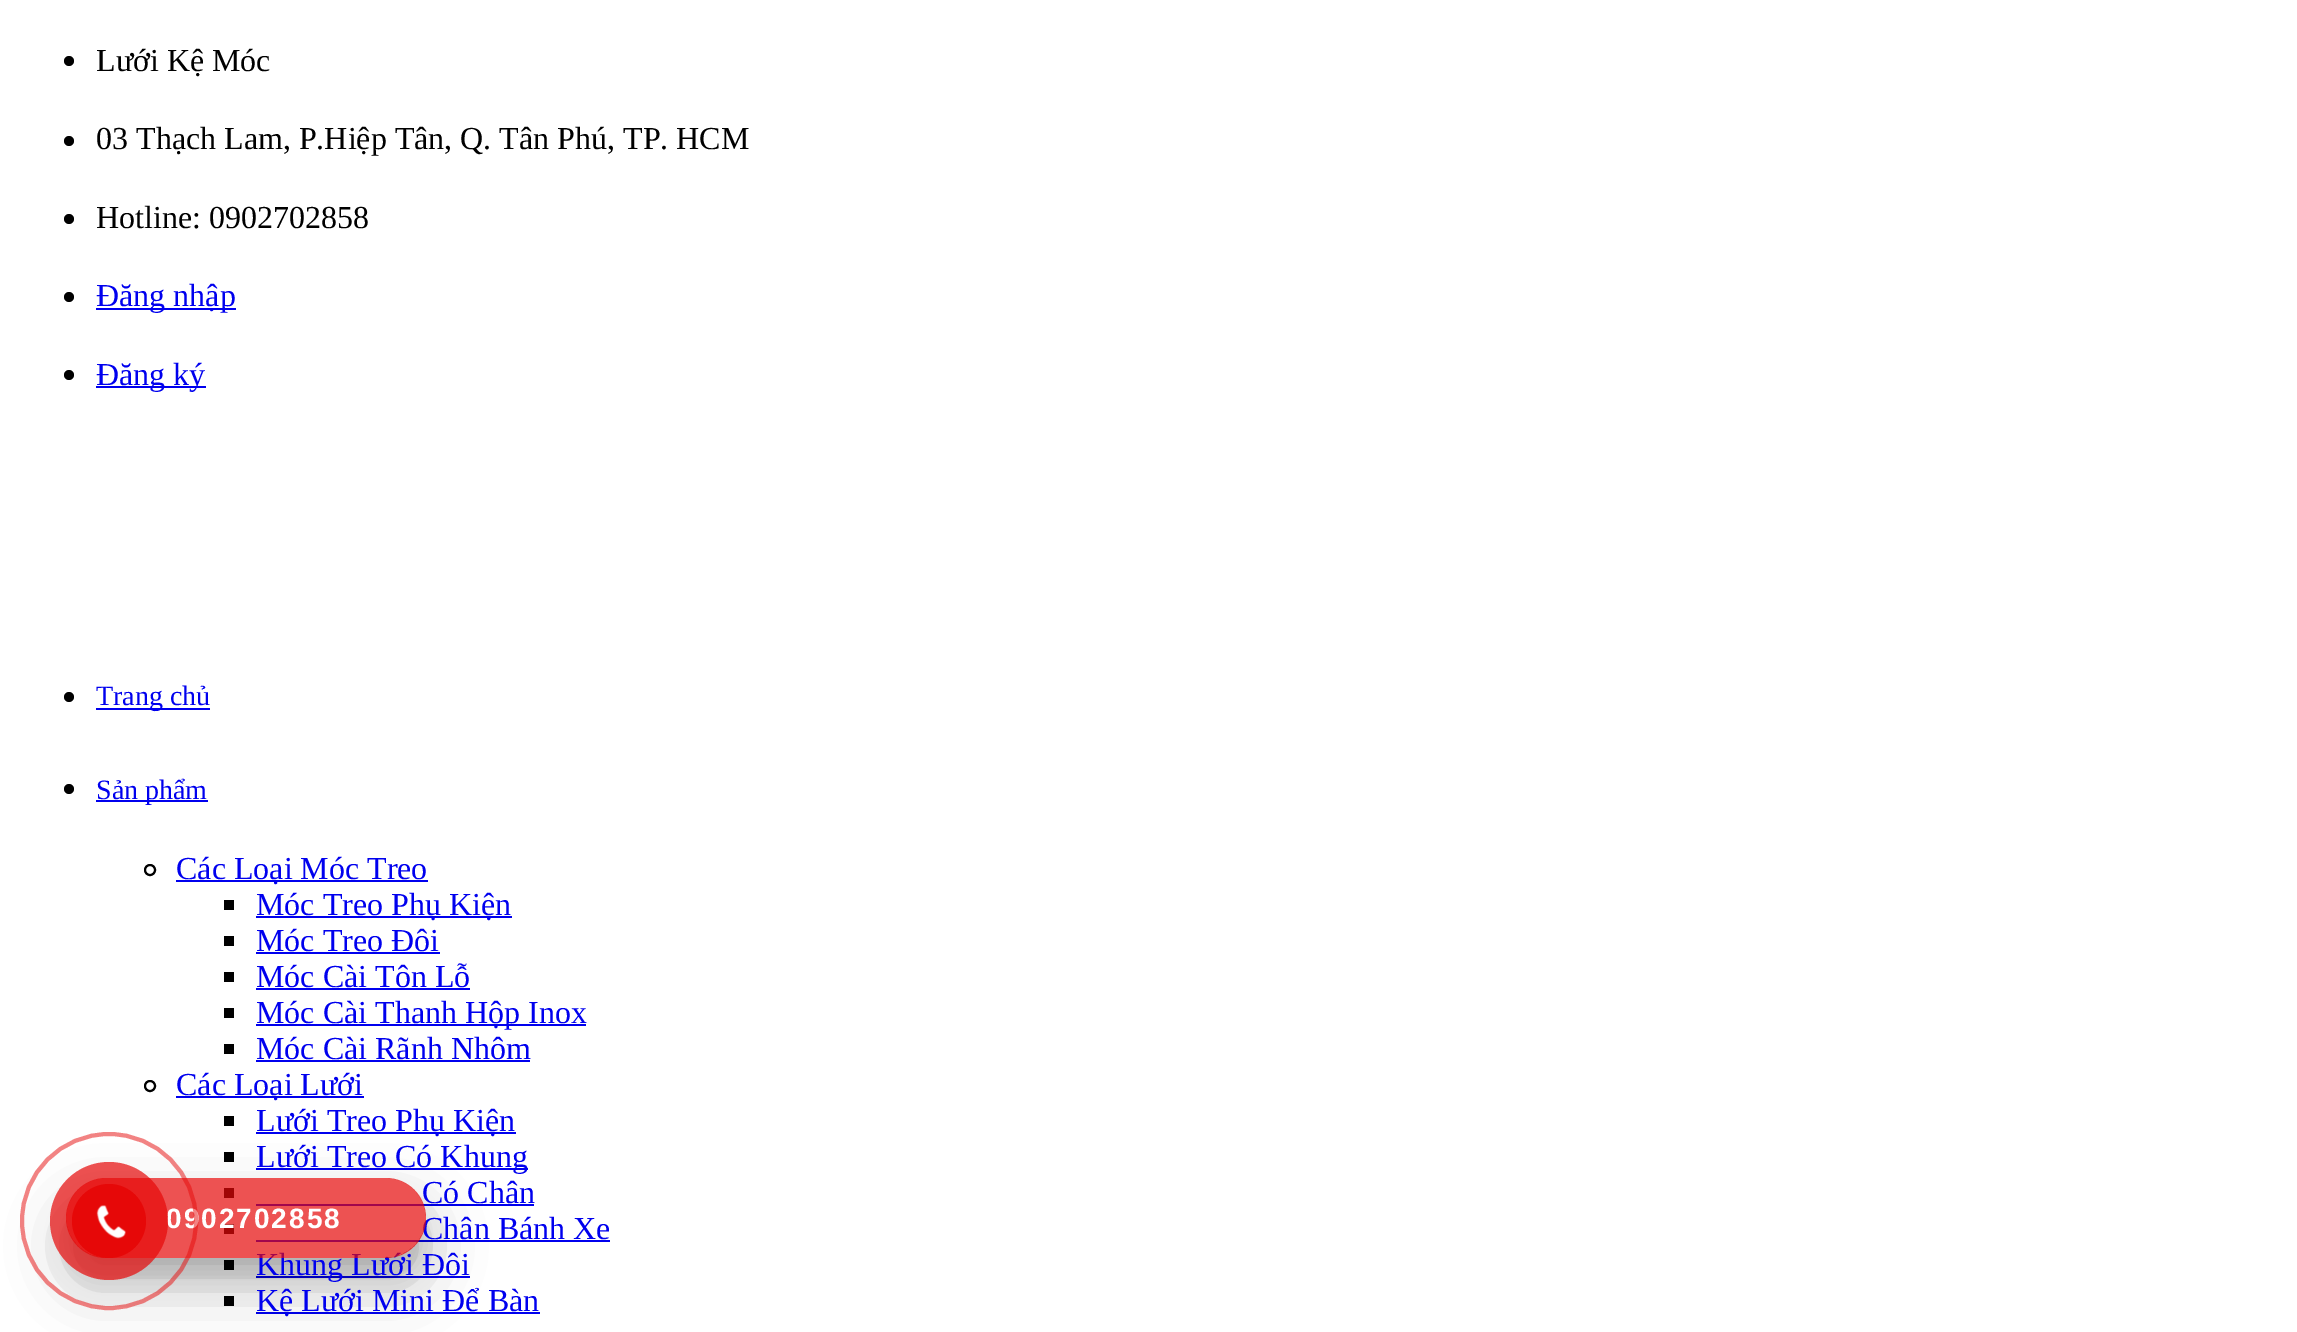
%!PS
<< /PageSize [2297 1332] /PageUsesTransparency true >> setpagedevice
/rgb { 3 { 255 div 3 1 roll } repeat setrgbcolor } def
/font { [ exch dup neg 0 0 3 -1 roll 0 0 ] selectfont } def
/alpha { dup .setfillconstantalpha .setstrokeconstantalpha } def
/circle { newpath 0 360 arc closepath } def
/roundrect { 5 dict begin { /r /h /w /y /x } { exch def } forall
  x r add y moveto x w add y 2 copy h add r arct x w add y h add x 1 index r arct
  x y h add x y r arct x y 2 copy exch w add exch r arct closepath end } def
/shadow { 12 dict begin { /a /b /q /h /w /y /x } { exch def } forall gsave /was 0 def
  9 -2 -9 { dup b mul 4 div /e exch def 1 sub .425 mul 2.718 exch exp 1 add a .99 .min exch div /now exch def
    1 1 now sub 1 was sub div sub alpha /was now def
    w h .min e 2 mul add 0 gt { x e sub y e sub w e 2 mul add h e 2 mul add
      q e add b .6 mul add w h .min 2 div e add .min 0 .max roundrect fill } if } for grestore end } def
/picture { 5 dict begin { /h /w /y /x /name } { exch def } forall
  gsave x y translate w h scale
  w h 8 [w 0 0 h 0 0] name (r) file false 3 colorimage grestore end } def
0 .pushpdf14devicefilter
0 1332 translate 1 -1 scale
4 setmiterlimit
255 255 255 rgb
0 0 2297 1332 rectfill
0 0 0 rgb
69 61 5 circle fill
69 141 5 circle fill
69 219 5 circle fill
69 297 5 circle fill
0 0 238 rgb
96 308 140 2 rectfill
0 0 0 rgb
69 375 5 circle fill
0 0 238 rgb
96 386 110 2 rectfill
0 0 0 rgb
69 697 5 circle fill
0 0 238 rgb
96 708 114 2 rectfill
0 0 0 rgb
69 789 5 circle fill
0 0 238 rgb
96 800 112 2 rectfill
0 0 0 rgb
2 setlinewidth
150 870 5 circle stroke
[
  [176 880 252 2 0 0 238]
  [224 900 10 10 0 0 0]
  [256 916 256 2 0 0 238]
  [224 936 10 10 0 0 0]
  [256 952 184 2 0 0 238]
  [224 972 10 10 0 0 0]
  [256 988 214 2 0 0 238]
  [224 1008 10 10 0 0 0]
  [256 1024 330 2 0 0 238]
  [224 1044 10 10 0 0 0]
  [256 1060 274 2 0 0 238]
] { aload pop rgb rectfill } forall
0 0 0 rgb
150 1086 5 circle stroke
[
  [176 1096 188 2 0 0 238]
  [224 1116 10 10 0 0 0]
  [256 1132 260 2 0 0 238]
  [224 1152 10 10 0 0 0]
  [256 1168 272 2 0 0 238]
  [224 1188 10 10 0 0 0]
  [256 1204 278 2 0 0 238]
  [224 1224 10 10 0 0 0]
  [256 1240 354 2 0 0 238]
  [224 1260 10 10 0 0 0]
  [256 1276 214 2 0 0 238]
  [224 1296 10 10 0 0 0]
  [256 1312 284 2 0 0 238]
] { aload pop rgb rectfill } forall
gsave
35 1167 moveto 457 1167 lineto 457 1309 lineto 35 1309 lineto closepath 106 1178 moveto 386 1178 lineto 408 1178 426 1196 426 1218 curveto 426 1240 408 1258 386 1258 curveto 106 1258 lineto 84 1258 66 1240 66 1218 curveto 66 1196 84 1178 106 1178 curveto closepath eoclip newpath
0 0 0 rgb
66 1198 360 80 40 10 0.1 shadow
grestore
gsave
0 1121 moveto 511 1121 lineto 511 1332 lineto 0 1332 lineto closepath 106 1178 moveto 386 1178 lineto 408 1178 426 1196 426 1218 curveto 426 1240 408 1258 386 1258 curveto 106 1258 lineto 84 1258 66 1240 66 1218 curveto 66 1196 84 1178 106 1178 curveto closepath eoclip newpath
0 0 0 rgb
66 1206 360 80 40 28 0.25 shadow
grestore
/LiberationSerif-Regular 32 font
0 0 0 rgb
[
  [(Lưới Kệ Móc) 96 71]
  [(03 Thạch Lam, P.Hiệp Tân, Q. Tân Phú, TP. HCM) 96 149]
  [(Hotline: 0902702858) 96 228]
] { aload pop moveto show } forall
0 0 238 rgb
96 306 moveto (Đăng nhập) show
96 385 moveto (Đăng ký) show
/LiberationSerif-Regular 28 font
96 705 moveto (Trang chủ) show
96 799 moveto (Sản phẩm) show
/LiberationSerif-Regular 32 font
[
  [(Các Loại Móc Treo) 176 879]
  [(Móc Treo Phụ Kiện) 256 915]
  [(Móc Treo Đôi) 256 951]
  [(Móc Cài Tôn Lỗ) 256 987]
  [(Móc Cài Thanh Hộp Inox) 256 1023]
  [(Móc Cài Rãnh Nhôm) 256 1059]
  [(Các Loại Lưới) 176 1095]
  [(Lưới Treo Phụ Kiện) 256 1131]
  [(Lưới Treo Có Khung) 256 1167]
  [(Có Chân) 422 1203]
  [(Chân Bánh Xe) 422 1239]
  [(Khung Lưới Đôi) 256 1275]
  [(Kệ Lưới Mini Để Bàn) 256 1311]
] { aload pop moveto show } forall
0.7 alpha
230 8 8 rgb
66 1178 360 80 40 roundrect fill
/LiberationSans-Bold 28 font
1 alpha
255 255 255 rgb
166 1228 moveto 2 0 (0902702858) ashow
0.5 alpha
230 8 8 rgb
4 setlinewidth
109 1221 87 circle stroke
0.7 alpha
109 1221 59 circle fill
1 alpha
109 1221 37 circle fill
(img/1.rgb) 96 1205 30 34 picture
.poppdf14devicefilter showpage
